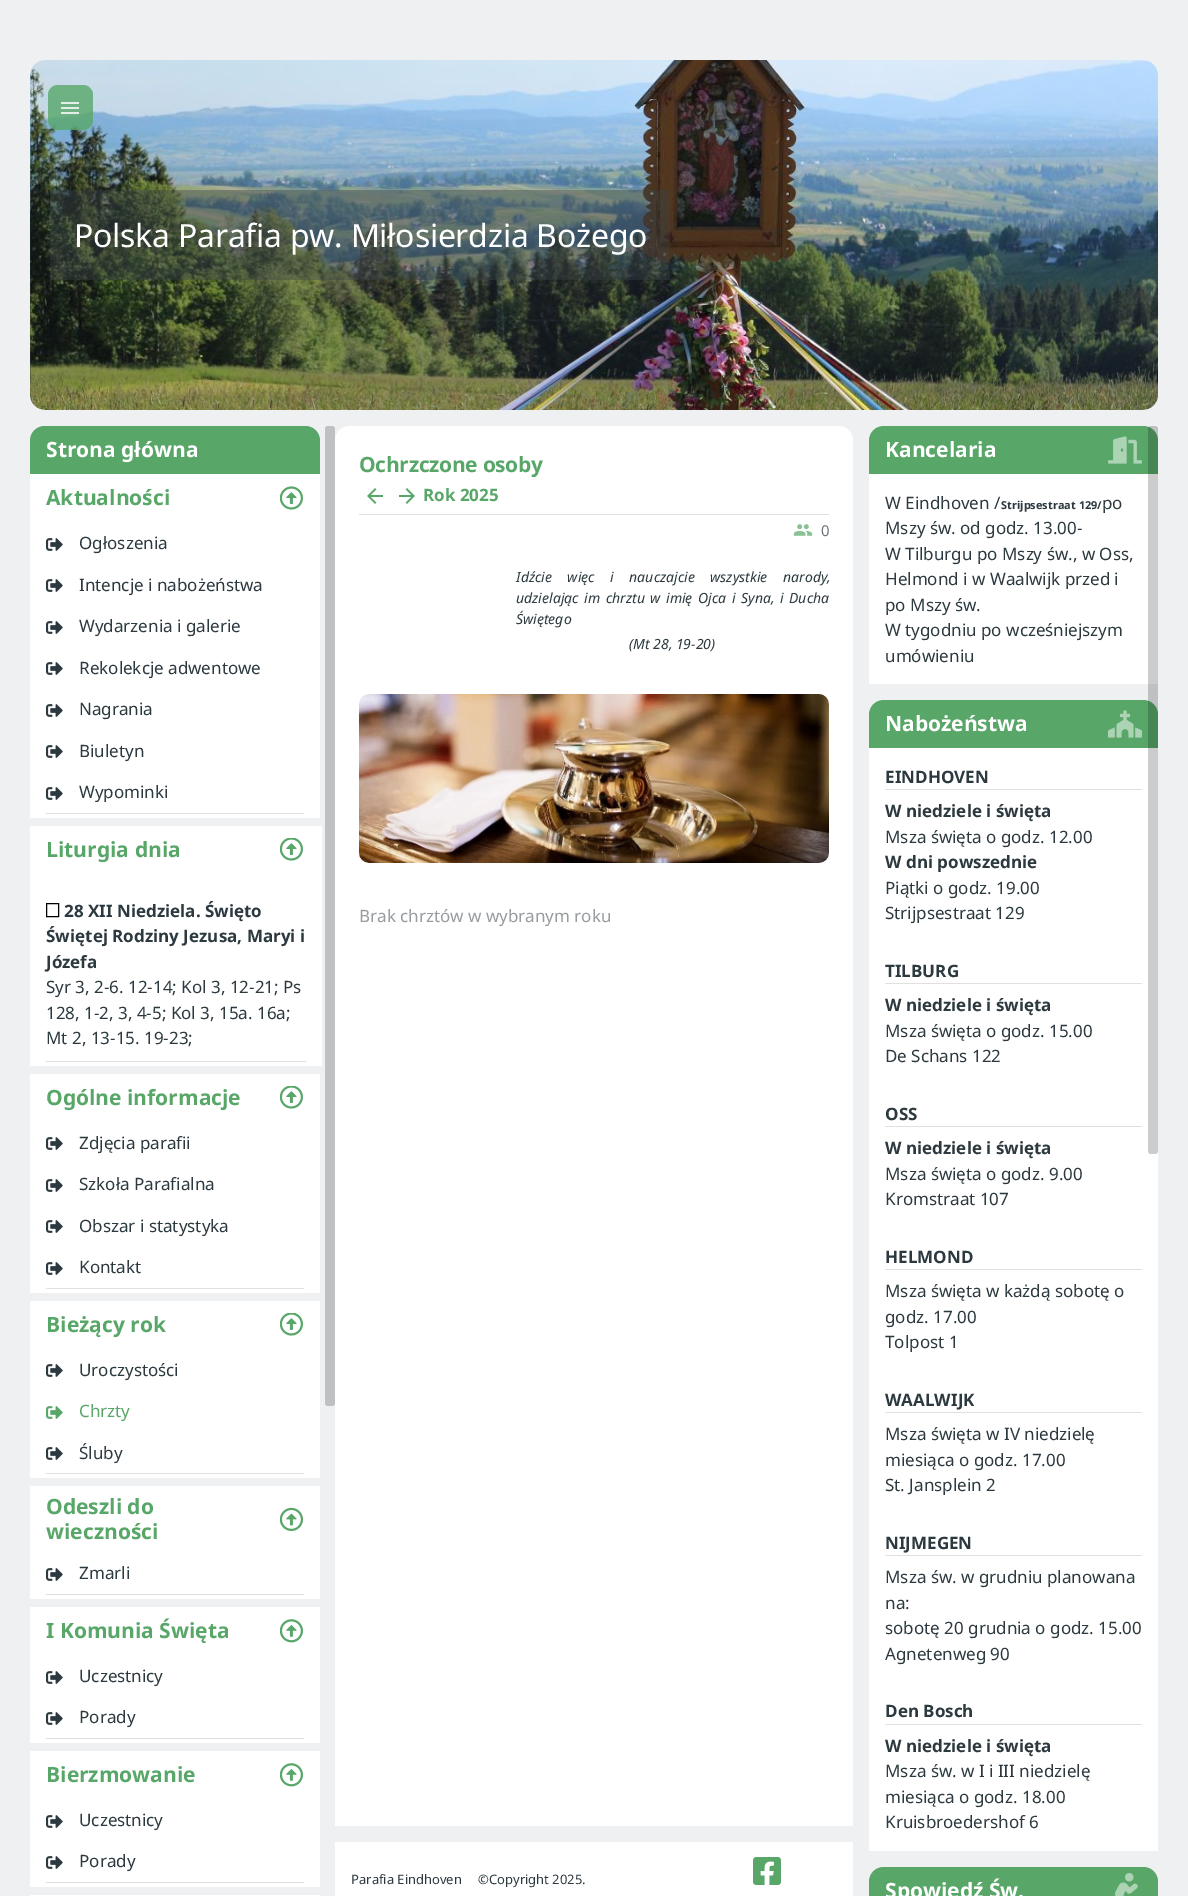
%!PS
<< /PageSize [1188 1896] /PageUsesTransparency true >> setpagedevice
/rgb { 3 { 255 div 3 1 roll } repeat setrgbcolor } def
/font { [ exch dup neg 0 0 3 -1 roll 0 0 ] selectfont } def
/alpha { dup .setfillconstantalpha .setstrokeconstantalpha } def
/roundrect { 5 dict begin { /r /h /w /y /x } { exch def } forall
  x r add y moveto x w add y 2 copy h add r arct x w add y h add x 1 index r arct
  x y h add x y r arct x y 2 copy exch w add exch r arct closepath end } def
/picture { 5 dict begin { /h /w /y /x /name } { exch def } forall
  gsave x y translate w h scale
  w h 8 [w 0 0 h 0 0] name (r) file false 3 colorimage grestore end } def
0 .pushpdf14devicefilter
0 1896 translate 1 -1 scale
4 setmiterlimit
238 240 241 rgb
0 0 1188 1896 rectfill
255 255 255 rgb
30 60 1128 350 15 roundrect fill
(img/1.rgb) 30 60 1128 350 picture
0.8 alpha
88 167 105 rgb
48 85 45 45 10 roundrect fill
1 alpha
(img/2.rgb) 61 102 18 12 picture
0.4 alpha
57 66 70 rgb
50 190 620 90 rectfill
1 alpha
88 167 105 rgb
45 426 moveto 305 426 lineto 313.5 426 320 432.5 320 441 curveto 320 474 lineto 30 474 lineto 30 441 lineto 30 432.5 36.5 426 45 426 curveto closepath fill
255 255 255 rgb
30 474 290 344 rectfill
(img/3.rgb) 280 486 23 24 picture
(img/4.rgb) 46 538 17 13 picture
(img/4.rgb) 46 579 17 13 picture
(img/4.rgb) 46 621 17 13 picture
(img/4.rgb) 46 662 17 13 picture
(img/4.rgb) 46 704 17 13 picture
(img/4.rgb) 46 745 17 13 picture
(img/4.rgb) 46 787 17 13 picture
224 224 224 rgb
46 813 258 1 rectfill
255 255 255 rgb
30 826 292 240 rectfill
(img/5.rgb) 280 838 23 23 picture
0 0 0 rgb
46.5 903.5 12 13 rectstroke
224 224 224 rgb
46 1061 260 1 rectfill
255 255 255 rgb
30 1074 290 219 rectfill
(img/5.rgb) 280 1086 23 23 picture
(img/4.rgb) 46 1137 17 13 picture
(img/4.rgb) 46 1179 17 13 picture
(img/4.rgb) 46 1220 17 13 picture
(img/4.rgb) 46 1262 17 13 picture
224 224 224 rgb
46 1288 258 1 rectfill
255 255 255 rgb
30 1301 290 177 rectfill
(img/5.rgb) 280 1313 23 23 picture
(img/4.rgb) 46 1364 17 13 picture
(img/6.rgb) 46 1406 17 13 picture
(img/4.rgb) 46 1447 17 13 picture
224 224 224 rgb
46 1473 258 1 rectfill
255 255 255 rgb
30 1486 290 113 rectfill
(img/7.rgb) 280 1507 23 24 picture
(img/4.rgb) 46 1568 17 13 picture
224 224 224 rgb
46 1594 258 1 rectfill
255 255 255 rgb
30 1607 290 136 rectfill
(img/8.rgb) 280 1619 23 24 picture
(img/4.rgb) 46 1671 17 13 picture
(img/4.rgb) 46 1712 17 13 picture
224 224 224 rgb
46 1738 258 1 rectfill
255 255 255 rgb
30 1751 290 136 rectfill
(img/8.rgb) 280 1763 23 24 picture
(img/4.rgb) 46 1815 17 13 picture
(img/4.rgb) 46 1856 17 13 picture
224 224 224 rgb
46 1882 258 1 rectfill
255 255 255 rgb
30 1895 290 1 rectfill
190 192 193 rgb
325 426 10 980 3 roundrect fill
255 255 255 rgb
350 426 moveto 838 426 lineto 846.5 426 853 432.5 853 441 curveto 853 1826 lineto 335 1826 lineto 335 441 lineto 335 432.5 341.5 426 350 426 curveto closepath fill
(img/9.rgb) 367 488 16 16 picture
(img/10.rgb) 399 488 16 16 picture
224 224 224 rgb
359 514 470 1 rectfill
(img/11.rgb) 793 524 20 12 picture
(img/12.rgb) 359 694 470 169 picture
255 255 255 rgb
884 426 moveto 1143 426 lineto 1151.5 426 1158 432.5 1158 441 curveto 1158 684 lineto 869 684 lineto 869 441 lineto 869 432.5 875.5 426 884 426 curveto closepath fill
88 167 105 rgb
884 426 moveto 1143 426 lineto 1151.5 426 1158 432.5 1158 441 curveto 1158 474 lineto 869 474 lineto 869 441 lineto 869 432.5 875.5 426 884 426 curveto closepath fill
(img/13.rgb) 1108 436 34 28 picture
255 255 255 rgb
884 700 moveto 1143 700 lineto 1151.5 700 1158 706.5 1158 715 curveto 1158 1851 lineto 869 1851 lineto 869 715 lineto 869 706.5 875.5 700 884 700 curveto closepath fill
88 167 105 rgb
884 700 moveto 1143 700 lineto 1151.5 700 1158 706.5 1158 715 curveto 1158 748 lineto 869 748 lineto 869 715 lineto 869 706.5 875.5 700 884 700 curveto closepath fill
(img/14.rgb) 1108 710 34 28 picture
[
  [885 789 257 1 224 224 224]
  [885 983 257 1 224 224 224]
  [885 1126 257 1 224 224 224]
  [885 1269 257 1 224 224 224]
  [885 1412 257 1 224 224 224]
  [885 1555 257 1 224 224 224]
  [885 1724 257 1 224 224 224]
] { aload pop rgb rectfill } forall
88 167 105 rgb
884 1867 moveto 1143 1867 lineto 1151.5 1867 1158 1873.5 1158 1882 curveto 1158 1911 lineto 869 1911 lineto 869 1882 lineto 869 1873.5 875.5 1867 884 1867 curveto closepath fill
(img/15.rgb) 1115 1873 23 23 picture
0.2 alpha
0 0 0 rgb
1148 426 10 728 3 roundrect fill
1 alpha
255 255 255 rgb
335 1842 518 54 rectfill
(img/16.rgb) 753 1857 28 28 picture
/NotoSans-Regular 32 font
74 247 moveto -0.25 0 (Polska Parafia pw. Miłosierdzia Bożego) ashow
/NotoSans-Bold 21 font
46 457 moveto (Strona główna) show
88 167 105 rgb
46 505 moveto (Aktualności) show
/NotoSans-Regular 17 font
44 57 63 rgb
[
  [(Ogłoszenia) 79 549]
  [(Intencje i nabożeństwa) 79 591]
  [(Wydarzenia i galerie) 79 632]
  [(Rekolekcje adwentowe) 79 674]
  [(Nagrania) 79 715]
  [(Biuletyn) 79 757]
  [(Wypominki) 79 798]
] { aload pop moveto show } forall
/NotoSans-Bold 21 font
88 167 105 rgb
46 857 moveto (Liturgia dnia) show
/NotoSans-Bold 17 font
44 57 63 rgb
[
  [(28 XII Niedziela. Święto) 64 917]
  [(Świętej Rodziny Jezusa, Maryi i) 46 942]
  [(Józefa) 46 968]
] { aload pop moveto show } forall
/NotoSans-Regular 17 font
[
  [(Syr 3, 2-6. 12-14; Kol 3, 12-21; Ps) 46 993]
  [(128, 1-2, 3, 4-5; Kol 3, 15a. 16a;) 46 1019]
  [(Mt 2, 13-15. 19-23;) 46 1044]
] { aload pop moveto show } forall
/NotoSans-Bold 21 font
88 167 105 rgb
46 1105 moveto (Ogólne informacje) show
/NotoSans-Regular 17 font
44 57 63 rgb
[
  [(Zdjęcia parafii) 79 1149]
  [(Szkoła Parafialna) 79 1190]
  [(Obszar i statystyka) 79 1232]
  [(Kontakt) 79 1273]
] { aload pop moveto show } forall
/NotoSans-Bold 21 font
88 167 105 rgb
46 1332 moveto (Bieżący rok) show
/NotoSans-Regular 17 font
44 57 63 rgb
79 1376 moveto (Uroczystości) show
88 167 105 rgb
79 1417 moveto (Chrzty) show
44 57 63 rgb
79 1459 moveto (Śluby) show
/NotoSans-Bold 21 font
88 167 105 rgb
46 1514 moveto (Odeszli do) show
46 1539 moveto (wieczności) show
/NotoSans-Regular 17 font
44 57 63 rgb
79 1579 moveto (Zmarli) show
/NotoSans-Bold 21 font
88 167 105 rgb
46 1638 moveto (I Komunia Święta) show
/NotoSans-Regular 17 font
44 57 63 rgb
79 1682 moveto (Uczestnicy) show
79 1723 moveto (Porady) show
/NotoSans-Bold 21 font
88 167 105 rgb
46 1782 moveto (Bierzmowanie) show
/NotoSans-Regular 17 font
44 57 63 rgb
79 1826 moveto (Uczestnicy) show
79 1867 moveto (Porady) show
/NotoSans-Bold 21 font
88 167 105 rgb
359 472 moveto -0.3 0 (Ochrzczone osoby) ashow
/NotoSans-Bold 17 font
423 501 moveto (Rok 2025) show
/NotoSans-Regular 15 font
107 116 121 rgb
821 536 moveto (0) show
/NotoSans-Italic 14 font
44 57 63 rgb
516 582 moveto 12 0 32 (Idźcie więc i nauczajcie wszystkie narody,) widthshow
516 603 moveto 2 0 32 (udzielając im chrztu w imię Ojca i Syna, i Ducha) widthshow
516 624 moveto (Świętego) show
629 649 moveto (\(Mt 28, 19-20\)) show
/NotoSans-Regular 17 font
150 156 159 rgb
359 922 moveto (Brak chrztów w wybranym roku) show
/NotoSans-Bold 21 font
255 255 255 rgb
885 457 moveto (Kancelaria) show
/NotoSans-Regular 17 font
44 57 63 rgb
885 509 moveto (W Eindhoven /) show
/NotoSans-Bold 11 font
1001 509 moveto (Strijpsestraat 129/) show
/NotoSans-Regular 17 font
[
  [(po) 1102 509]
  [(Mszy św. od godz. 13.00-) 885 534]
  [(W Tilburgu po Mszy św., w Oss,) 885 560]
  [(Helmond i w Waalwijk przed i) 885 585]
  [(po Mszy św.) 885 611]
  [(W tygodniu po wcześniejszym) 885 636]
  [(umówieniu) 885 662]
] { aload pop moveto show } forall
/NotoSans-Bold 21 font
255 255 255 rgb
885 731 moveto (Nabożeństwa) show
/NotoSans-Bold 17 font
44 57 63 rgb
885 783 moveto (EINDHOVEN) show
885 817 moveto (W niedziele i święta) show
/NotoSans-Regular 17 font
885 843 moveto (Msza święta o godz. 12.00) show
/NotoSans-Bold 17 font
885 868 moveto (W dni powszednie) show
/NotoSans-Regular 17 font
885 894 moveto (Piątki o godz. 19.00) show
885 919 moveto (Strijpsestraat 129) show
/NotoSans-Bold 17 font
885 977 moveto (TILBURG) show
885 1011 moveto (W niedziele i święta) show
/NotoSans-Regular 17 font
885 1037 moveto (Msza święta o godz. 15.00) show
885 1062 moveto (De Schans 122) show
/NotoSans-Bold 17 font
885 1120 moveto (OSS) show
885 1154 moveto (W niedziele i święta) show
/NotoSans-Regular 17 font
885 1180 moveto (Msza święta o godz. 9.00) show
885 1205 moveto (Kromstraat 107) show
/NotoSans-Bold 17 font
885 1263 moveto (HELMOND) show
/NotoSans-Regular 17 font
[
  [(Msza święta w każdą sobotę o) 885 1297]
  [(godz. 17.00) 885 1323]
  [(Tolpost 1) 885 1348]
] { aload pop moveto show } forall
/NotoSans-Bold 17 font
885 1406 moveto (WAALWIJK) show
/NotoSans-Regular 17 font
[
  [(Msza święta w IV niedzielę) 885 1440]
  [(miesiąca o godz. 17.00) 885 1466]
  [(St. Jansplein 2) 885 1491]
] { aload pop moveto show } forall
/NotoSans-Bold 17 font
885 1549 moveto (NIJMEGEN) show
/NotoSans-Regular 17 font
[
  [(Msza św. w grudniu planowana) 885 1583]
  [(na:) 885 1609]
  [(sobotę 20 grudnia o godz. 15.00) 885 1634]
  [(Agnetenweg 90) 885 1660]
] { aload pop moveto show } forall
/NotoSans-Bold 17 font
885 1717 moveto (Den Bosch) show
885 1752 moveto (W niedziele i święta) show
/NotoSans-Regular 17 font
[
  [(Msza św. w I i III niedzielę) 885 1777]
  [(miesiąca o godz. 18.00) 885 1803]
  [(Kruisbroedershof 6) 885 1828]
] { aload pop moveto show } forall
/NotoSans-Bold 21 font
255 255 255 rgb
885 1898 moveto (Spowiedź Św.) show
/NotoSans-Regular 13 font
44 57 63 rgb
351 1884 moveto (Parafia Eindhoven) show
478 1884 moveto (©Copyright 2025.) show
.poppdf14devicefilter showpage
